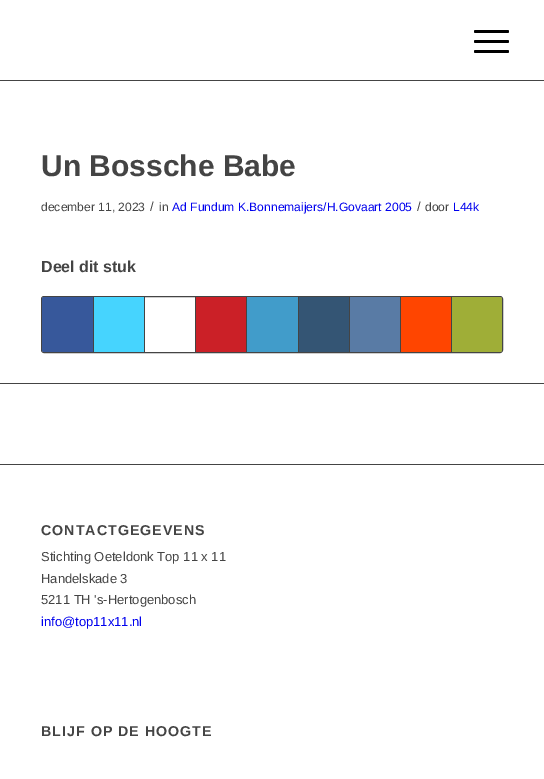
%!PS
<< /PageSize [544 779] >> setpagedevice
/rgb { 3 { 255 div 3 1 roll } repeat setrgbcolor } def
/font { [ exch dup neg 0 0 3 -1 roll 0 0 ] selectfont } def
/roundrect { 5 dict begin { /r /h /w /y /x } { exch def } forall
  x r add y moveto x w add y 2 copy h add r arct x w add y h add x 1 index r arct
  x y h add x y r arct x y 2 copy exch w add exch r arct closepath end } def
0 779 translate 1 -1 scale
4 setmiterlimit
255 255 255 rgb
0 0 544 779 rectfill
68 68 68 rgb
0 80 544 1 rectfill
0 0 0 rgb
474 40 35 3 1.5 roundrect fill
474 30 35 3 1.5 roundrect fill
474 50 35 3 1.5 roundrect fill
68 68 68 rgb
41.5 296.5 461 56 2.5 roundrect stroke
55 88 155 rgb
44 297 moveto 93 297 lineto 93 352 lineto 44 352 lineto 43 352 42 351 42 350 curveto 42 299 lineto 42 298 43 297 44 297 curveto closepath fill
[
  [93 297 1 55 68 68 68]
  [94 297 50 55 70 212 254]
  [144 297 1 55 68 68 68]
  [195 297 1 55 68 68 68]
  [196 297 50 55 203 32 39]
  [246 297 1 55 68 68 68]
  [247 297 51 55 65 156 202]
  [298 297 1 55 68 68 68]
  [299 297 50 55 52 85 116]
  [349 297 1 55 68 68 68]
  [350 297 50 55 89 123 165]
  [400 297 1 55 68 68 68]
  [401 297 50 55 255 69 0]
  [451 297 1 55 68 68 68]
] { aload pop rgb rectfill } forall
159 174 55 rgb
452 297 moveto 500 297 lineto 501 297 502 298 502 299 curveto 502 350 lineto 502 351 501 352 500 352 curveto 452 352 lineto closepath fill
68 68 68 rgb
0 383 544 1 rectfill
0 464 544 1 rectfill
/LiberationSans-Bold 30 font
41 176 moveto (Un Bossche Babe) show
/LiberationSans-Regular 12.1 font
41 211 moveto (december 11, 2023) show
/LiberationSans-Regular 13 font
150 211 moveto (/) show
/LiberationSans-Regular 12.1 font
159 211 moveto (in) show
0 0 238 rgb
172 211 moveto (Ad Fundum K.Bonnemaijers/H.Govaart 2005) show
/LiberationSans-Regular 13 font
68 68 68 rgb
417 211 moveto (/) show
/LiberationSans-Regular 12.1 font
425 211 moveto (door) show
0 0 238 rgb
453 211 moveto (L44k) show
/LiberationSans-Bold 16 font
68 68 68 rgb
41 272 moveto (Deel dit stuk) show
/LiberationSans-Bold 14.25 font
41 535 moveto 1 0 (CONTACTGEGEVENS) ashow
/LiberationSans-Regular 13 font
[
  [(Stichting Oeteldonk Top 11 x 11) 41 561]
  [(Handelskade 3) 41 583]
  [(5211 TH 's-Hertogenbosch) 41 604]
] { aload pop moveto show } forall
0 0 238 rgb
41 626 moveto (info@top11x11.nl) show
/LiberationSans-Bold 14.25 font
68 68 68 rgb
41 736 moveto 1 0 (BLIJF OP DE HOOGTE) ashow
showpage
